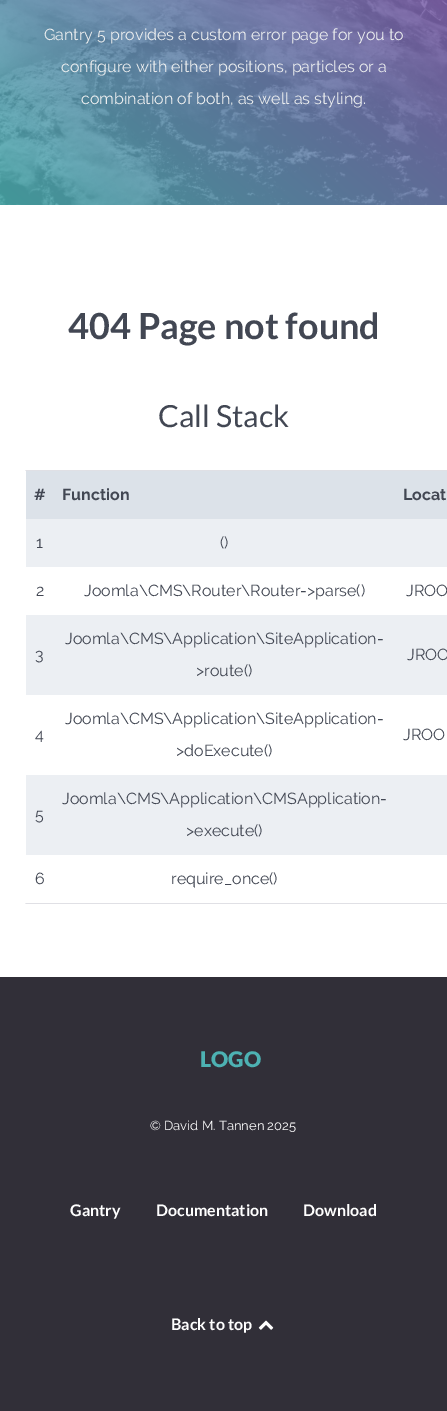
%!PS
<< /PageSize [447 1411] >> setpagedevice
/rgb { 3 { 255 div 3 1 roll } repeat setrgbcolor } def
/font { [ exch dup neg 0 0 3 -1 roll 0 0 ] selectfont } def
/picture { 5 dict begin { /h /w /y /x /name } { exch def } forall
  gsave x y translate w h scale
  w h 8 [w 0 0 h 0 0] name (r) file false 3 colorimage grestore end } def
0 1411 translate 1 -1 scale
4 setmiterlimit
255 255 255 rgb
0 0 447 1411 rectfill
(img/1.rgb) 0 0 447 205 picture
224 224 229 rgb
25 470 moveto 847 470 lineto 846 471 lineto 26 471 lineto closepath fill
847 904 moveto 25 904 lineto 26 903 lineto 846 903 lineto closepath fill
[
  [26 471 421 48 220 226 233]
  [26 519 421 48 236 239 243]
  [26 615 421 80 236 239 243]
  [26 775 421 80 236 239 243]
  [0 977 447 434 49 47 56]
] { aload pop rgb rectfill } forall
(img/2.rgb) 258 1320 16 10 picture
/Raleway-Regular 16 font
236 238 239 rgb
[
  [(Gantry 5 provides a custom error page for you to) 44 40]
  [(configure with either positions, particles or a) 61 72]
  [(combination of both, as well as styling.) 81 104]
] { aload pop moveto show } forall
/Lato-Bold 36 font
66 71 83 rgb
68 339 moveto (404 Page not found) show
/Lato-Regular 30.5 font
158 427 moveto (Call Stack) show
/Raleway-Bold 16 font
[
  [(#) 34 500]
  [(Function) 62 500]
  [(Locat) 403 500]
] { aload pop moveto show } forall
/Raleway-Regular 16 font
[
  [(1) 36 548]
  [(\(\)) 220 548]
  [(2) 36 596]
  [(Joomla\\CMS\\Router\\Router->parse\(\)) 84 596]
  [(JROO) 406 596]
  [(3) 35 660]
  [(Joomla\\CMS\\Application\\SiteApplication-) 65 644]
  [(>route\(\)) 196 676]
  [(JROO) 407 660]
  [(4) 35 740]
  [(Joomla\\CMS\\Application\\SiteApplication-) 65 724]
  [(>doExecute\(\)) 176 756]
  [(JROO) 403 740]
  [(5) 35 820]
  [(Joomla\\CMS\\Application\\CMSApplication-) 62 804]
  [(>execute\(\)) 186 836]
  [(6) 35 884]
  [(require_once\(\)) 171 884]
] { aload pop moveto show } forall
/Lato-Black 21.5 font
77 178 179 rgb
200 1067 moveto (LOGO) show
/Raleway-Regular 13 font
255 255 255 rgb
150 1130 moveto (© David M. Tannen 2025) show
/Lato-Bold 16 font
[
  [(Gantry) 70 1216]
  [(Documentation) 156 1216]
  [(Download) 303 1216]
  [(Back to top) 171 1330]
] { aload pop moveto show } forall
showpage
